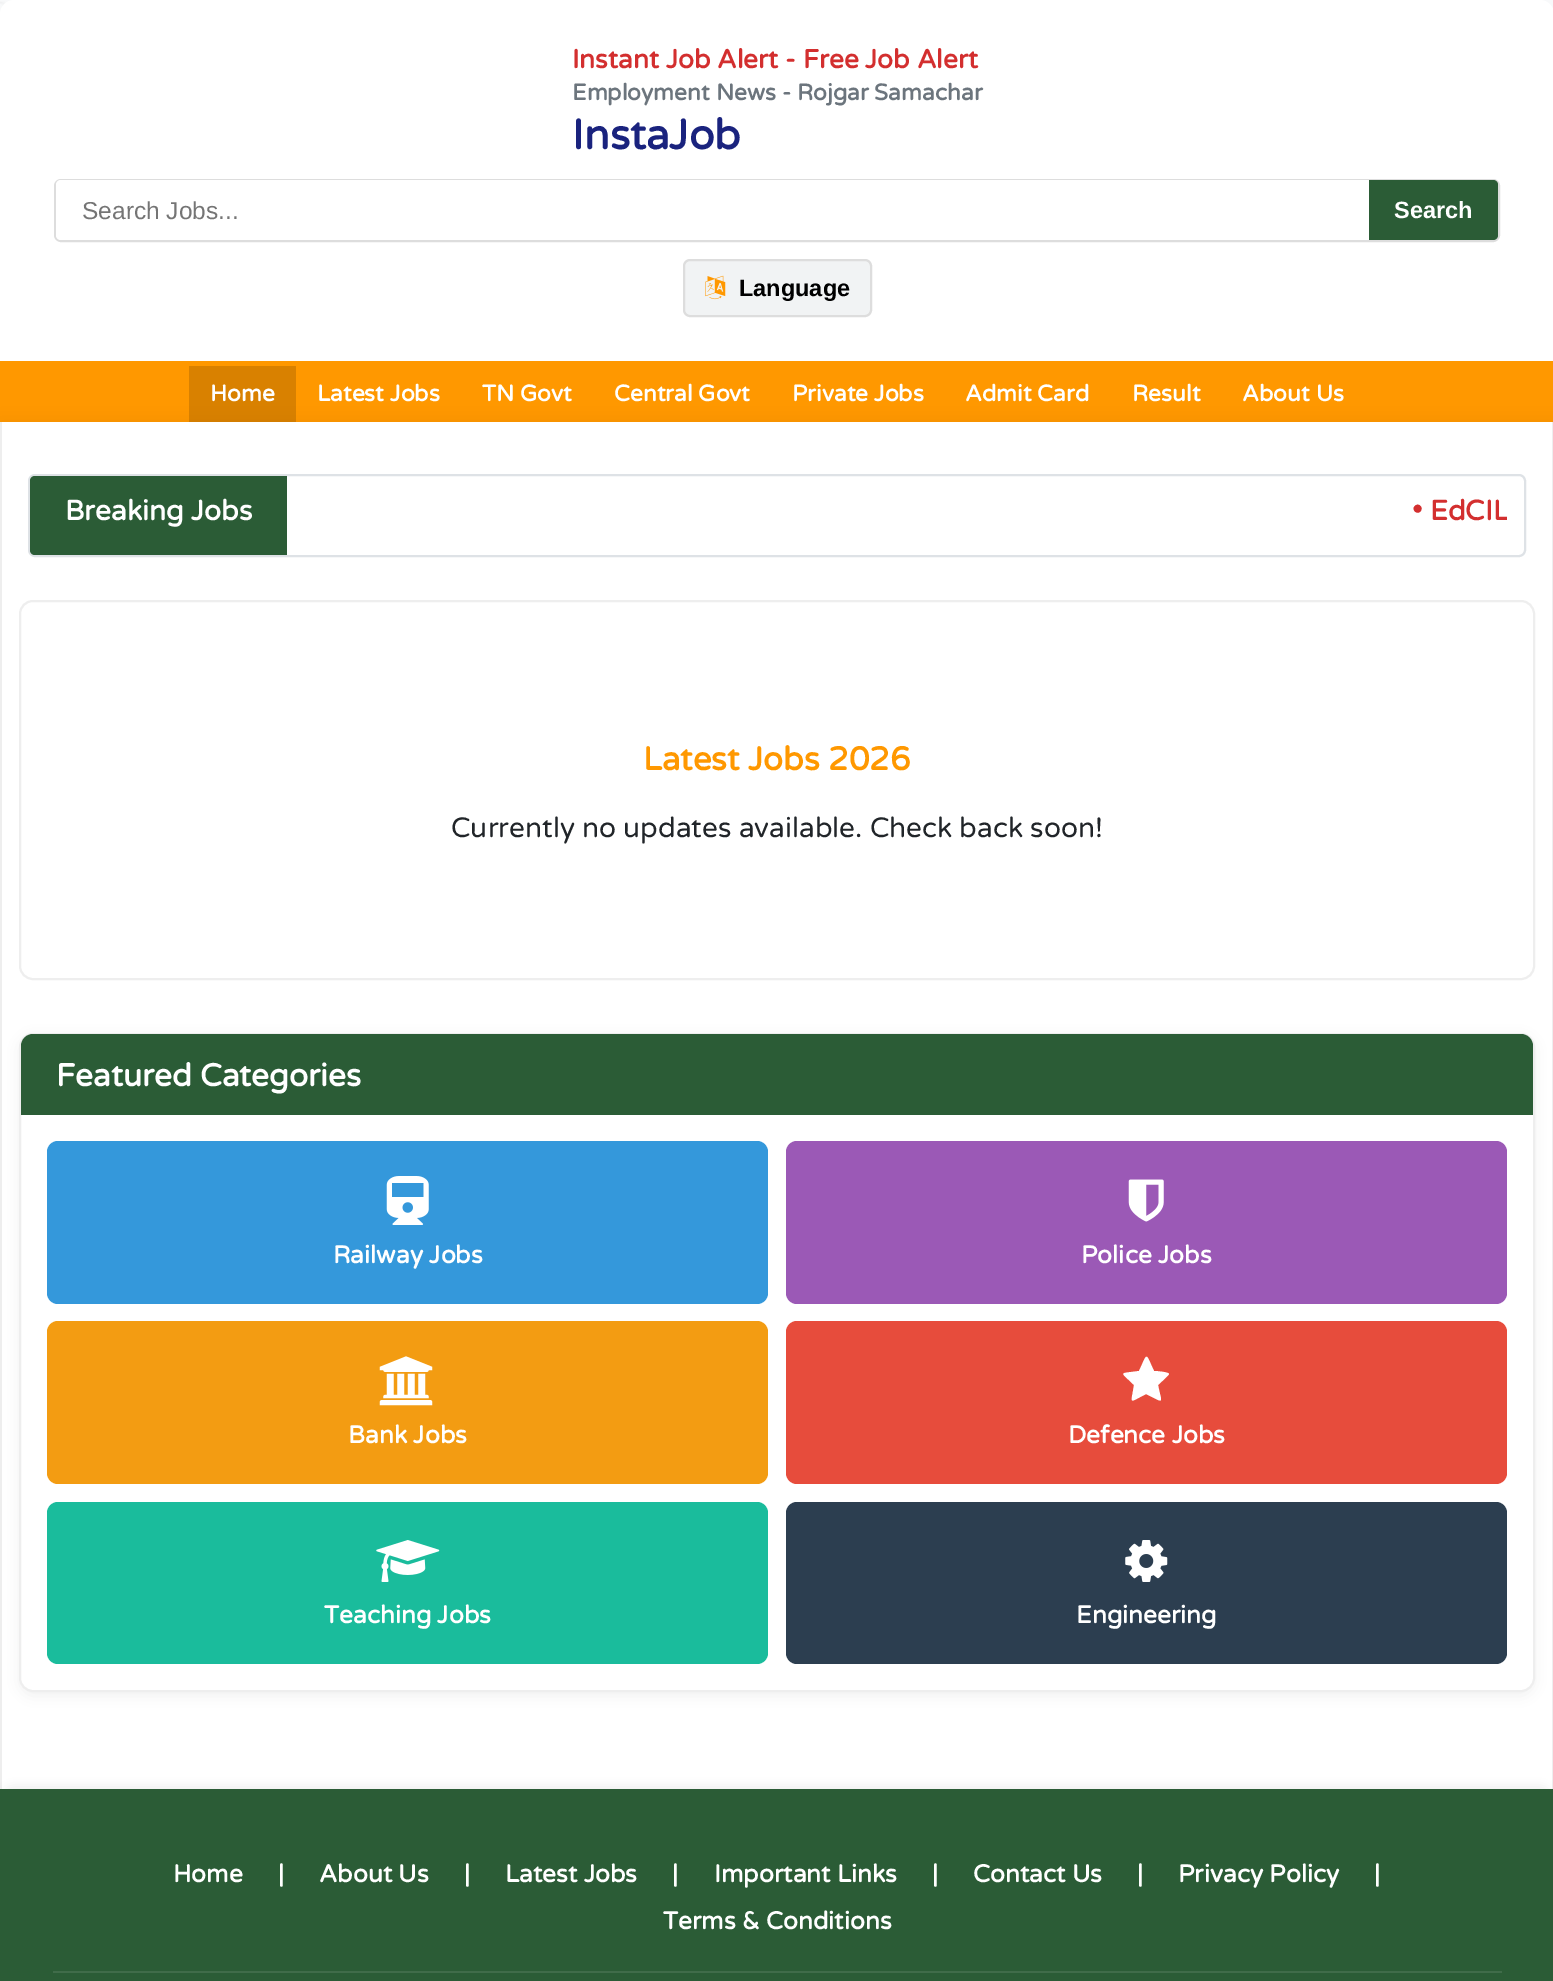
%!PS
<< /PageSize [1553 1981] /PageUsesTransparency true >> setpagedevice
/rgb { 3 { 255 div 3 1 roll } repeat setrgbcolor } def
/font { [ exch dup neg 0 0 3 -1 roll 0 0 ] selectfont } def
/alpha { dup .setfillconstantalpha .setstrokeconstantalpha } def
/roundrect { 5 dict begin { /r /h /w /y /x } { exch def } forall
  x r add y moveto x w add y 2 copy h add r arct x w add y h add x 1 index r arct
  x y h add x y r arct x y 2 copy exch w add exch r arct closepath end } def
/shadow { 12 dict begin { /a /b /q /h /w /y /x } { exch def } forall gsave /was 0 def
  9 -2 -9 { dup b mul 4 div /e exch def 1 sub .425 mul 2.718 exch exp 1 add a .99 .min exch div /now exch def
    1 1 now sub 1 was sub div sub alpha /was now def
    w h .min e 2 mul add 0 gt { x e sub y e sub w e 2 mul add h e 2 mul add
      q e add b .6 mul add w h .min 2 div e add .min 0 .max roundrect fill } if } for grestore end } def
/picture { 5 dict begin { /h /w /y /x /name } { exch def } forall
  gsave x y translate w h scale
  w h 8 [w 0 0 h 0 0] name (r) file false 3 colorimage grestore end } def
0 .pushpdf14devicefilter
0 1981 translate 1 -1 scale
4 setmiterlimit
248 249 250 rgb
0 0 1553 1981 rectfill
(img/1.rgb) 0 1 6 5 picture
255 255 255 rgb
14 0 moveto 1540 0 lineto 1547.5 0 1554 6.5 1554 14 curveto 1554 366 lineto 0 366 lineto 0 14 lineto 0 6.5 6.5 0 14 0 curveto closepath fill
255 152 0 rgb
0 361 1553 61 rectfill
221 221 221 rgb
2 setlinewidth
55 180 1444 61 6 roundrect stroke
255 255 255 rgb
61 180 moveto 1369 180 lineto 1369 240 lineto 61 240 lineto 58 240 56 238 56 235 curveto 56 185 lineto 56 182 58 180 61 180 curveto closepath fill
43 92 54 rgb
1369 180 moveto 1493 180 lineto 1496 180 1498 182 1498 185 curveto 1498 235 lineto 1498 238 1496 240 1493 240 curveto 1369 240 lineto closepath fill
241 243 244 rgb
684 260 187 56 6 roundrect gsave fill grestore
221 221 221 rgb
stroke
(img/2.rgb) 705 275 21 25 picture
0 0 0 rgb
0 422 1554 1367 0 9 0.05 shadow
0.15 alpha
[
  [189 366 107 56 0 0 0]
] { aload pop rgb rectfill } forall
1 alpha
[
  [2 422 1550 1367 255 255 255]
  [1552 422 1 1367 238 238 238]
  [0 422 2 1367 238 238 238]
] { aload pop rgb rectfill } forall
222 226 230 rgb
29 475 1496 81 6 roundrect stroke
43 92 54 rgb
35 476 moveto 287 476 lineto 287 555 lineto 35 555 lineto 32 555 30 553 30 550 curveto 30 481 lineto 30 478 32 476 35 476 curveto closepath fill
238 238 238 rgb
20 601 1514 378 13 roundrect stroke
0 0 0 rgb
19 1036 1516 660 14 7 0.06 shadow
255 255 255 rgb
20 1034 1514 657 13 roundrect gsave fill grestore
238 238 238 rgb
stroke
43 92 54 rgb
33 1034 moveto 1521 1034 lineto 1527.5 1034 1533 1039.5 1533 1046 curveto 1533 1115 lineto 21 1115 lineto 21 1046 lineto 21 1039.5 26.5 1034 33 1034 curveto closepath fill
52 152 219 rgb
47 1141 721 163 11 roundrect fill
(img/3.rgb) 386 1176 43 49 picture
155 89 182 rgb
786 1141 721 163 11 roundrect fill
(img/4.rgb) 1128 1179 36 43 picture
243 156 18 rgb
47 1321 721 163 11 roundrect fill
(img/5.rgb) 379 1356 54 50 picture
231 76 60 rgb
786 1321 721 163 11 roundrect fill
255 255 255 rgb
1169 1374 moveto 1169 1375 1160 1383 1158 1385 curveto 1162 1405 1165 1403 1146 1394 curveto 1128 1403 1131 1405 1134 1385 curveto 1120 1371 1118 1374 1139 1371 curveto 1148 1352 1145 1352 1154 1371 curveto 1156 1371 1169 1372 1169 1374 curveto closepath fill
26 188 156 rgb
47 1502 721 162 11 roundrect fill
(img/6.rgb) 376 1540 64 42 picture
44 62 80 rgb
786 1502 721 162 11 roundrect fill
(img/7.rgb) 1125 1540 43 42 picture
0 0 0 rgb
0 1785 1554 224 14 4.5 0.05 shadow
43 92 54 rgb
0 1789 1553 192 rectfill
64 108 74 rgb
53 1971 1449 2 rectfill
/VarelaRound-Bold 26.25 font
211 47 47 rgb
572 68 moveto (Instant Job Alert - Free Job Alert) show
/VarelaRound-Bold 22.75 font
108 117 125 rgb
572 100 moveto (Employment News - Rojgar Samachar) show
/VarelaRound-Bold 42 font
26 35 126 rgb
572 149 moveto (InstaJob) show
/LiberationSans-Regular 24.5 font
117 117 117 rgb
82 219 moveto (Search Jobs...) show
/LiberationSans-Bold 23.5 font
255 255 255 rgb
1394 218 moveto (Search) show
0 0 0 rgb
739 296 moveto (Language) show
/VarelaRound-Bold 22.75 font
255 255 255 rgb
[
  [(Home) 210 401]
  [(Latest Jobs) 317 401]
  [(TN Govt) 482 401]
  [(Central Govt) 614 401]
  [(Private Jobs) 792 401]
  [(Admit Card) 965 401]
  [(Result) 1132 401]
  [(About Us) 1242 401]
] { aload pop moveto show } forall
/VarelaRound-Bold 28 font
65 520 moveto (Breaking Jobs) show
gsave
305 494 1202 35 rectclip
211 47 47 rgb
1412 520 moveto (• EdCIL) show
grestore
/VarelaRound-Bold 32.75 font
255 152 0 rgb
643 770 moveto (Latest Jobs 2026) show
/VarelaRound-Regular 28 font
33 37 41 rgb
451 837 moveto (Currently no updates available. Check back soon!) show
/VarelaRound-Bold 31.5 font
255 255 255 rgb
56 1086 moveto (Featured Categories) show
/VarelaRound-Bold 24.5 font
[
  [(Railway Jobs) 333 1263]
  [(Police Jobs) 1081 1263]
  [(Bank Jobs) 348 1443]
  [(Defence Jobs) 1068 1443]
  [(Teaching Jobs) 324 1623]
  [(Engineering) 1076 1623]
  [(Home) 173 1882]
  [(|) 278 1882]
  [(About Us) 319 1882]
  [(|) 464 1882]
  [(Latest Jobs) 505 1882]
  [(|) 672 1882]
  [(Important Links) 714 1882]
  [(|) 932 1882]
  [(Contact Us) 973 1882]
  [(|) 1137 1882]
  [(Privacy Policy) 1178 1882]
  [(|) 1374 1882]
  [(Terms & Conditions) 663 1929]
] { aload pop moveto show } forall
.poppdf14devicefilter showpage
